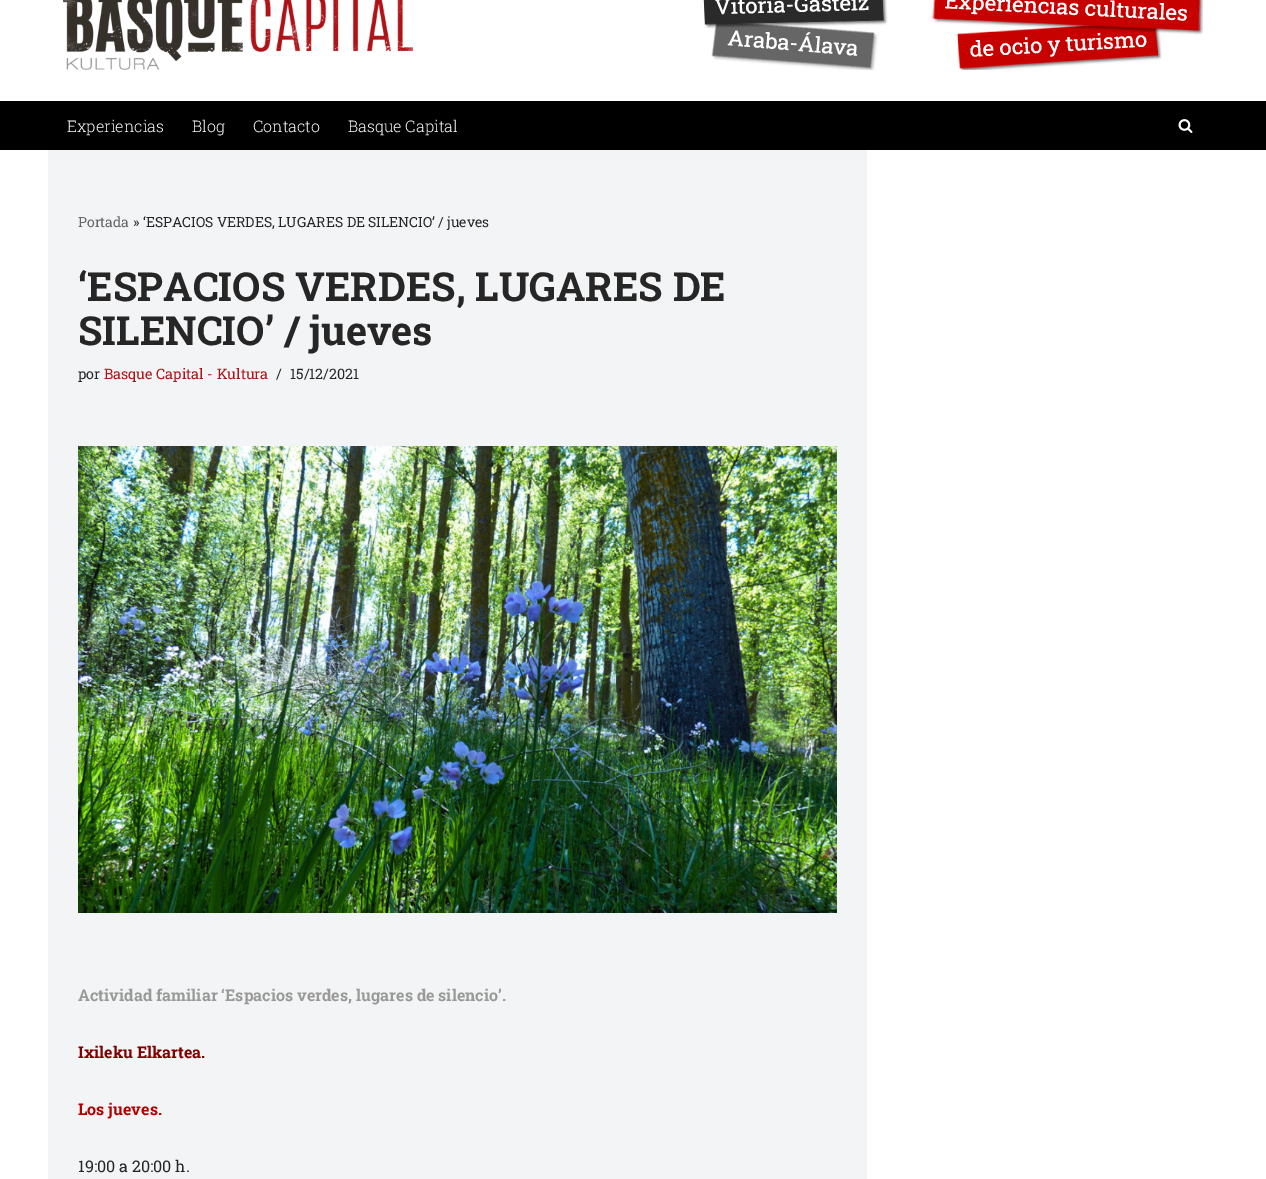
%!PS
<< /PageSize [1266 1179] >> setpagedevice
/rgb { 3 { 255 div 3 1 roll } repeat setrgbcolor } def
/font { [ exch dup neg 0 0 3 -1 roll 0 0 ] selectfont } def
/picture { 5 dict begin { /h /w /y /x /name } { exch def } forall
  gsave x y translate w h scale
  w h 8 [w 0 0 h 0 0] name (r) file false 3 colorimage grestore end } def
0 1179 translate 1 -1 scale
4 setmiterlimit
255 255 255 rgb
0 0 1266 1179 rectfill
(img/1.rgb) 63 0 350 70 picture
(img/2.rgb) 703 0 500 70 picture
0 0 0 rgb
0 101 1266 49 rectfill
(img/3.rgb) 1178 119 15 14 picture
243 244 245 rgb
48 150 819 1029 rectfill
(img/4.rgb) 78 446 759 467 picture
/RobotoSlab-Light 16 font
255 255 255 rgb
[
  [(Experiencias) 67 132]
  [(Blog) 192 132]
  [(Contacto) 253 132]
  [(Basque Capital) 348 132]
] { aload pop moveto show } forall
/RobotoSlab-Regular 14 font
103 103 103 rgb
78 227 moveto (Portada) show
39 38 38 rgb
133 227 moveto (» ‘ESPACIOS VERDES, LUGARES DE SILENCIO’ / jueves) show
/RobotoSlab-Bold 40 font
78 301 moveto (‘ESPACIOS VERDES, LUGARES DE) show
78 345 moveto (SILENCIO’ / jueves) show
/RobotoSlab-Regular 14.4 font
78 379 moveto (por) show
175 20 25 rgb
104 379 moveto (Basque Capital - Kultura) show
39 38 38 rgb
276 379 moveto (/) show
290 379 moveto (15/12/2021) show
/RobotoSlab-Bold 16 font
153 153 153 rgb
78 1001 moveto (Actividad familiar ‘Espacios verdes, lugares de silencio’.) show
128 0 0 rgb
78 1058 moveto (Ixileku Elkartea.) show
180 0 0 rgb
78 1115 moveto (Los jueves.) show
/RobotoSlab-Regular 16 font
39 38 38 rgb
78 1172 moveto (19:00 a 20:00 h.) show
showpage
